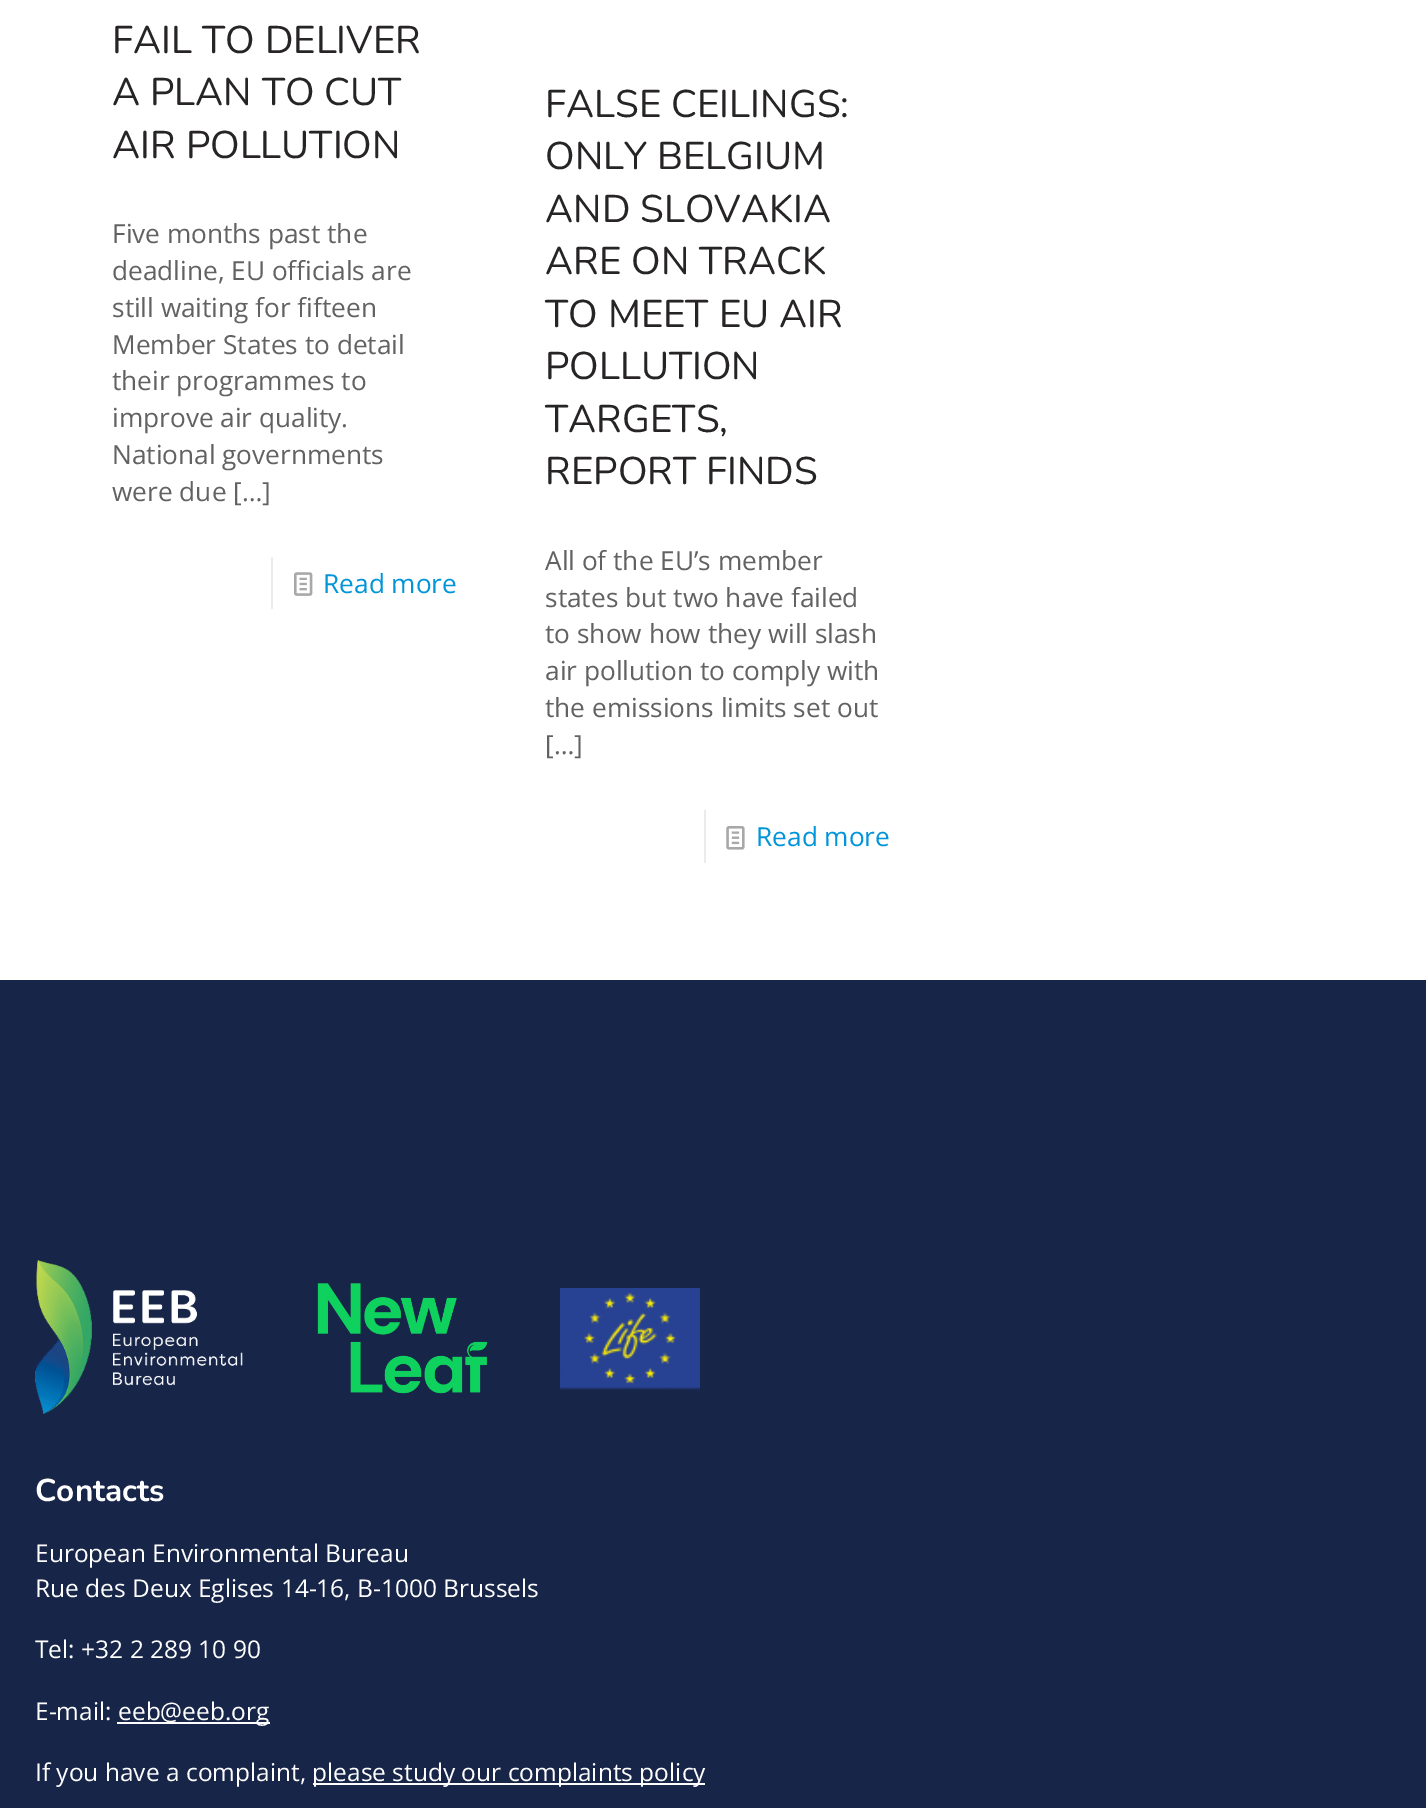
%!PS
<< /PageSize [1426 1808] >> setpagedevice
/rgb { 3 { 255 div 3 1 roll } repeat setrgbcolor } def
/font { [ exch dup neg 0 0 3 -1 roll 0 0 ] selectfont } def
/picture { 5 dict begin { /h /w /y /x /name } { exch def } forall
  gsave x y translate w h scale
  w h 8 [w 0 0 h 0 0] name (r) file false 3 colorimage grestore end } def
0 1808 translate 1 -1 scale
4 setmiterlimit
255 255 255 rgb
0 0 1426 1808 rectfill
235 235 235 rgb
271 557 2 52 rectfill
(img/1.rgb) 294 572 19 24 picture
704 810 2 53 rectfill
(img/2.rgb) 726 826 19 24 picture
23 37 73 rgb
0 980 1426 828 rectfill
(img/3.rgb) 35 1260 208 154 picture
(img/4.rgb) 317 1283 171 111 picture
(img/5.rgb) 560 1288 140 102 picture
255 255 255 rgb
117 1722 153 2 rectfill
313 1783 392 2 rectfill
/Nunito-Regular 38.5 font
39 36 37 rgb
[
  [(FAIL TO DELIVER) 112 53]
  [(A PLAN TO CUT) 112 105]
  [(AIR POLLUTION) 112 158]
] { aload pop moveto show } forall
/OpenSans-Regular 26.25 font
98 98 98 rgb
[
  [(Five months past the) 112 243]
  [(deadline, EU officials are) 112 280]
  [(still waiting for fifteen) 112 317]
  [(Member States to detail) 112 354]
  [(their programmes to) 112 390]
  [(improve air quality.) 112 427]
  [(National governments) 112 464]
  [(were due […]) 112 501]
] { aload pop moveto show } forall
0 148 216 rgb
323 593 moveto (Read more) show
/Nunito-Regular 38.5 font
39 36 37 rgb
[
  [(FALSE CEILINGS:) 545 117]
  [(ONLY BELGIUM) 545 169]
  [(AND SLOVAKIA) 545 222]
  [(ARE ON TRACK) 545 274]
  [(TO MEET EU AIR) 545 327]
  [(POLLUTION) 545 379]
  [(TARGETS,) 545 432]
  [(REPORT FINDS) 545 484]
] { aload pop moveto show } forall
/OpenSans-Regular 26.25 font
98 98 98 rgb
[
  [(All of the EU’s member) 545 570]
  [(states but two have failed) 545 607]
  [(to show how they will slash) 545 643]
  [(air pollution to comply with) 545 680]
  [(the emissions limits set out) 545 717]
  [([…]) 545 754]
] { aload pop moveto show } forall
0 148 216 rgb
756 846 moveto (Read more) show
/Nunito-Bold 31.5 font
255 255 255 rgb
35 1501 moveto (Contacts) show
/OpenSans-Regular 24.5 font
[
  [(European Environmental Bureau) 35 1562]
  [(Rue des Deux Eglises 14-16, B-1000 Brussels) 35 1597]
  [(Tel: +32 2 289 10 90) 35 1658]
  [(E-mail:) 35 1720]
  [(eeb@eeb.org) 118 1720]
  [(If you have a complaint,) 35 1781]
  [(please study our complaints policy) 312 1781]
] { aload pop moveto show } forall
showpage
